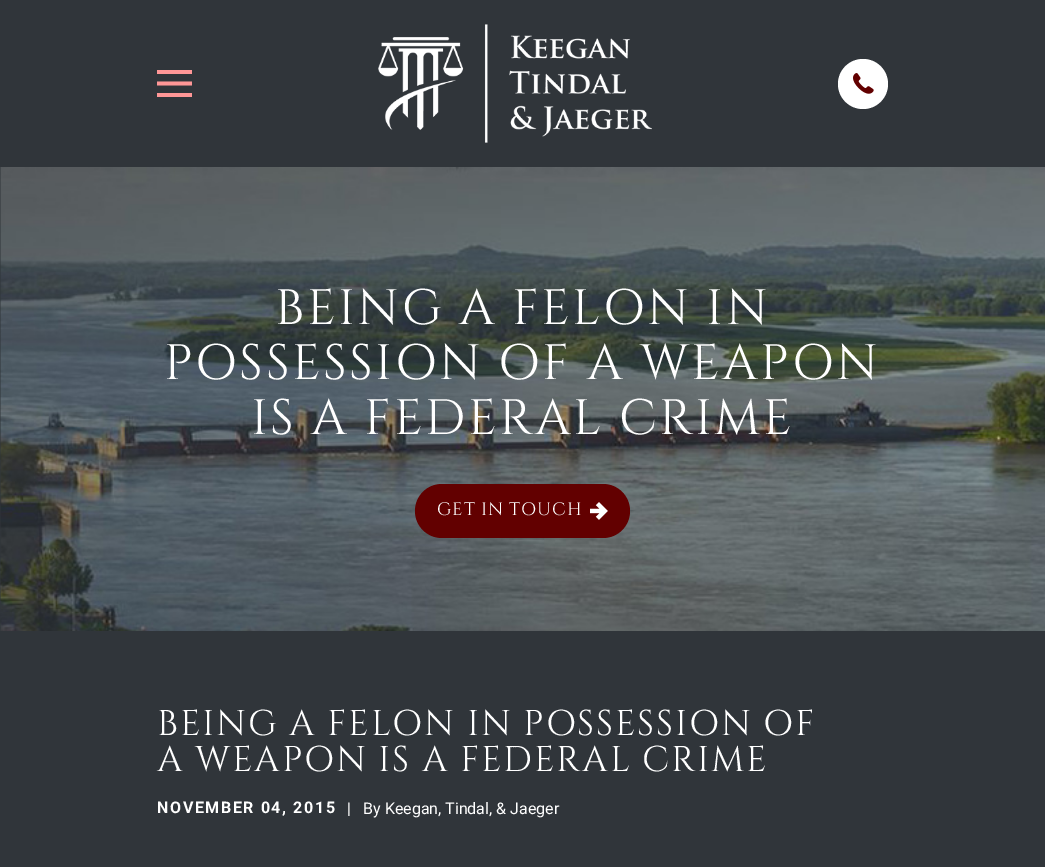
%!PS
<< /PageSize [1045 867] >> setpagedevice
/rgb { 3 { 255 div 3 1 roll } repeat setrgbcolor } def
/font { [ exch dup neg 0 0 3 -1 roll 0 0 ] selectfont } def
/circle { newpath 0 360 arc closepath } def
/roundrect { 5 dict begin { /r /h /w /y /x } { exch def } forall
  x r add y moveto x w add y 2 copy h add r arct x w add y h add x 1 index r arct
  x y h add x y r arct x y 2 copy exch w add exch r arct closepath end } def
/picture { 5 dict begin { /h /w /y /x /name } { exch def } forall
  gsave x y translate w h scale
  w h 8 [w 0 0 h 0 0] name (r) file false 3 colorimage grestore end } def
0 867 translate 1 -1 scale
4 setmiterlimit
48 53 58 rgb
0 0 1045 867 rectfill
255 151 151 rgb
157 70 moveto 157 74 lineto 192 74 lineto 192 70 lineto closepath 157 81.5 moveto 157 85.5 lineto 192 85.5 lineto 192 81.5 lineto closepath 157 93 moveto 157 97 lineto 192 97 lineto 192 93 lineto closepath fill
(img/1.rgb) 378 24 274 119 picture
255 255 255 rgb
863 84 25 circle fill
(img/2.rgb) 853 73 21 21 picture
(img/3.rgb) 0 167 1045 464 picture
98 0 0 rgb
415 484 215 54 27 roundrect fill
(img/4.rgb) 590 502 18 18 picture
/Cinzel-Regular 49.8 font
255 255 255 rgb
275 324 moveto 2.5 0 (BEING A FELON IN) ashow
164 379 moveto 2.5 0 (POSSESSION OF A WEAPON) ashow
251 434 moveto 2.5 0 (IS A FEDERAL CRIME) ashow
/Cinzel-Regular 18 font
437 515 moveto 0.9 0 (GET IN TOUCH) ashow
/Cinzel-Regular 35.75 font
157 735 moveto 1.8 0 (BEING A FELON IN POSSESSION OF) ashow
157 771 moveto 1.8 0 (A WEAPON IS A FEDERAL CRIME) ashow
/Roboto-Bold 16 font
157 813 moveto 1.6 0 (NOVEMBER 04, 2015) ashow
/Roboto-Regular 16 font
347 814 moveto (|) show
363 814 moveto (By Keegan, Tindal, & Jaeger) show
showpage
